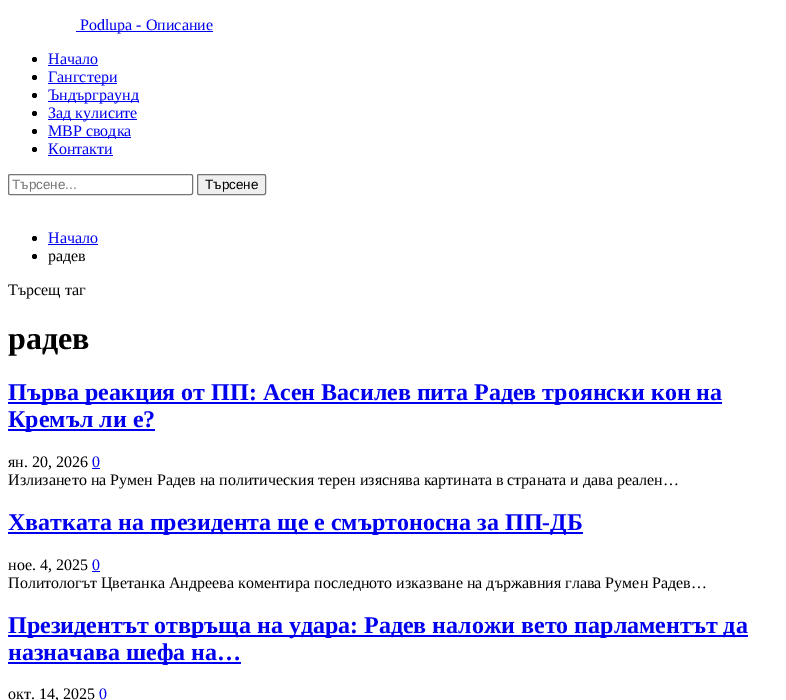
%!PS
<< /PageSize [786 700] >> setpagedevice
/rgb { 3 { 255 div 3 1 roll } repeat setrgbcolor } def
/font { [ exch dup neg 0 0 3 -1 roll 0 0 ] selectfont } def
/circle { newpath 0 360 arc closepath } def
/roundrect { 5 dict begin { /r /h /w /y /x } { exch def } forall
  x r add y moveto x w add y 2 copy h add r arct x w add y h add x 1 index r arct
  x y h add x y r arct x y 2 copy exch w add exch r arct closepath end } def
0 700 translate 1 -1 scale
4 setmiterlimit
255 255 255 rgb
0 0 786 700 rectfill
0 0 238 rgb
76 31 137 1 rectfill
0 0 0 rgb
34.5 59.5 2.5 circle fill
0 0 238 rgb
48 65 50 1 rectfill
0 0 0 rgb
34.5 77.5 2.5 circle fill
0 0 238 rgb
48 83 69 1 rectfill
0 0 0 rgb
34.5 95.5 2.5 circle fill
0 0 238 rgb
48 101 91 1 rectfill
0 0 0 rgb
34.5 113.5 2.5 circle fill
0 0 238 rgb
48 119 89 1 rectfill
0 0 0 rgb
34.5 131.5 2.5 circle fill
0 0 238 rgb
48 137 83 1 rectfill
0 0 0 rgb
34.5 149.5 2.5 circle fill
0 0 238 rgb
48 155 65 1 rectfill
118 118 118 rgb
8.5 174.5 184 20 1.5 roundrect stroke
239 239 239 rgb
197.5 174.5 68 20 1.5 roundrect gsave fill grestore
118 118 118 rgb
stroke
0 0 0 rgb
34.5 238.5 2.5 circle fill
0 0 238 rgb
48 244 50 1 rectfill
0 0 0 rgb
34.5 256.5 2.5 circle fill
[
  [8 402 714 2 0 0 238]
  [8 429 147 2 0 0 238]
  [92 468 8 1 0 0 238]
  [8 532 575 2 0 0 238]
  [92 571 8 1 0 0 238]
  [8 635 740 2 0 0 238]
  [8 662 233 2 0 0 238]
] { aload pop rgb rectfill } forall
/LiberationSerif-Regular 16 font
[
  [(Podlupa - Описание) 80 30]
  [(Начало) 48 64]
  [(Гангстери) 48 82]
  [(Ъндърграунд) 48 100]
  [(Зад кулисите) 48 118]
  [(МВР сводка) 48 136]
  [(Контакти) 48 154]
] { aload pop moveto show } forall
/LiberationSans-Regular 13.5 font
117 117 117 rgb
12 189 moveto (Търсене...) show
0 0 0 rgb
205 189 moveto (Търсене) show
/LiberationSerif-Regular 16 font
0 0 238 rgb
48 243 moveto (Начало) show
0 0 0 rgb
48 261 moveto (радев) show
8 295 moveto (Търсещ таг) show
/LiberationSerif-Bold 32 font
8 349 moveto (радев) show
/LiberationSerif-Bold 24 font
0 0 238 rgb
8 400 moveto (Първа реакция от ПП: Асен Василев пита Радев троянски кон на) show
8 427 moveto (Кремъл ли е?) show
/LiberationSerif-Regular 16 font
0 0 0 rgb
8 467 moveto (ян. 20, 2026) show
0 0 238 rgb
92 467 moveto (0) show
0 0 0 rgb
8 485 moveto (Излизането на Румен Радев на политическия терен изяснява картината в страната и дава реален…) show
/LiberationSerif-Bold 24 font
0 0 238 rgb
8 530 moveto (Хватката на президента ще е смъртоносна за ПП-ДБ) show
/LiberationSerif-Regular 16 font
0 0 0 rgb
8 570 moveto (ное. 4, 2025) show
0 0 238 rgb
92 570 moveto (0) show
0 0 0 rgb
8 588 moveto (Политологът Цветанка Андреева коментира последното изказване на държавния глава Румен Радев…) show
/LiberationSerif-Bold 24 font
0 0 238 rgb
8 633 moveto (Президентът отвръща на удара: Радев наложи вето парламентът да) show
8 660 moveto (назначава шефа на…) show
/LiberationSerif-Regular 16 font
0 0 0 rgb
8 699 moveto (окт. 14, 2025) show
0 0 238 rgb
99 699 moveto (0) show
showpage
